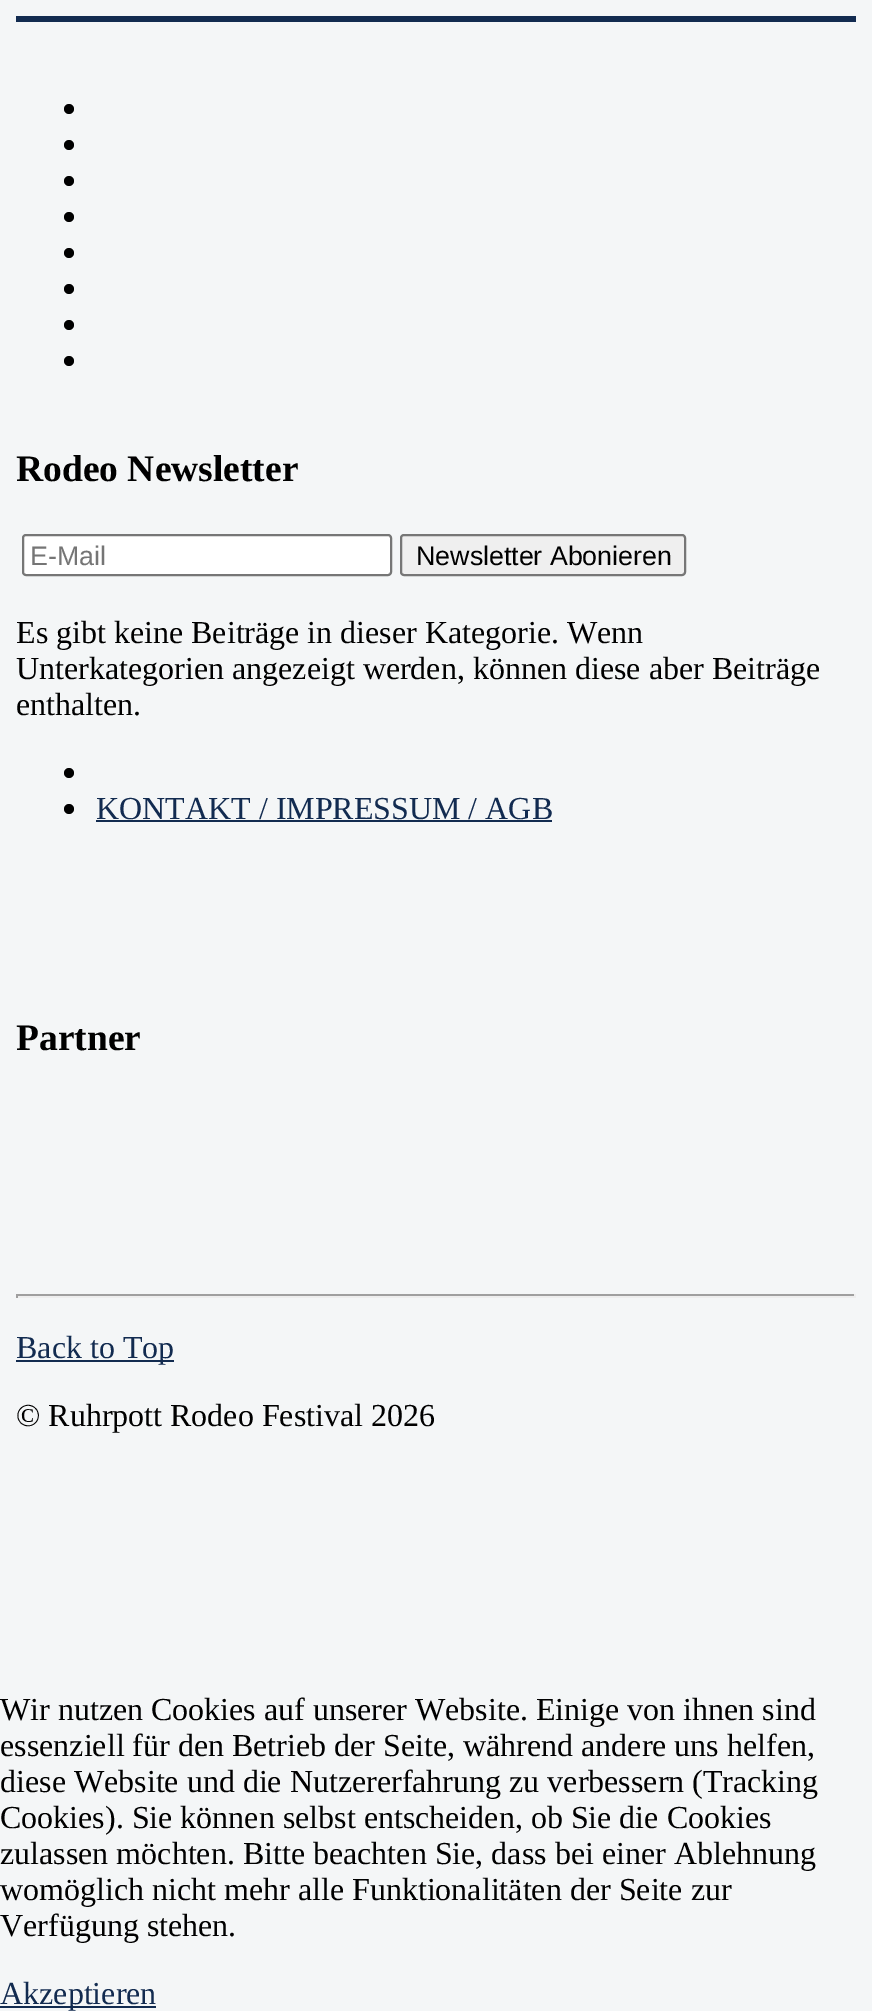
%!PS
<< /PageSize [872 2011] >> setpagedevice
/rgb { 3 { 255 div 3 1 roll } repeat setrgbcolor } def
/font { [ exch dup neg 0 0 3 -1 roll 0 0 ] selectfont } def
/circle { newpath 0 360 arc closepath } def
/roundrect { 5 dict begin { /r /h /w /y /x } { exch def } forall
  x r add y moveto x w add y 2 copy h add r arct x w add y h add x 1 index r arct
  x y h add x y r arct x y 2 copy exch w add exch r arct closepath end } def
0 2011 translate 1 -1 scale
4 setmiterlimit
244 246 247 rgb
0 0 872 2011 rectfill
18 43 80 rgb
16 16 840 6 rectfill
0 0 0 rgb
69 109 5 circle fill
69 145 5 circle fill
69 181 5 circle fill
69 217 5 circle fill
69 253 5 circle fill
69 289 5 circle fill
69 325 5 circle fill
69 361 5 circle fill
255 255 255 rgb
23 535 368 40 3 roundrect gsave fill grestore
118 118 118 rgb
2 setlinewidth
stroke
239 239 239 rgb
401 535 284 40 3 roundrect gsave fill grestore
118 118 118 rgb
stroke
0 0 0 rgb
69 773 5 circle fill
69 809 5 circle fill
[
  [96 820 456 2 18 43 80]
  [16 1294 840 2 159 159 159]
  [854 1294 2 4 238 238 238]
  [16 1296 840 2 238 238 238]
  [16 1294 2 4 159 159 159]
  [16 1360 158 2 18 43 80]
  [0 2006 156 2 18 43 80]
] { aload pop rgb rectfill } forall
/LiberationSerif-Bold 37.5 font
0 0 0 rgb
16 481 moveto (Rodeo Newsletter) show
/LiberationSans-Regular 26.75 font
117 117 117 rgb
30 565 moveto (E-Mail) show
0 0 0 rgb
416 565 moveto (Newsletter Abonieren) show
/LiberationSerif-Regular 32 font
[
  [(Es gibt keine Beiträge in dieser Kategorie. Wenn) 16 643]
  [(Unterkategorien angezeigt werden, können diese aber Beiträge) 16 679]
  [(enthalten.) 16 715]
] { aload pop moveto show } forall
18 43 80 rgb
96 819 moveto (KONTAKT / IMPRESSUM / AGB) show
/LiberationSerif-Bold 37.5 font
0 0 0 rgb
16 1050 moveto (Partner) show
/LiberationSerif-Regular 32 font
18 43 80 rgb
16 1358 moveto (Back to Top) show
0 0 0 rgb
[
  [(© Ruhrpott Rodeo Festival 2026) 16 1426]
  [(Wir nutzen Cookies auf unserer Website. Einige von ihnen sind) 0 1720]
  [(essenziell für den Betrieb der Seite, während andere uns helfen,) 0 1756]
  [(diese Website und die Nutzererfahrung zu verbessern \(Tracking) 0 1792]
  [(Cookies\). Sie können selbst entscheiden, ob Sie die Cookies) 0 1828]
  [(zulassen möchten. Bitte beachten Sie, dass bei einer Ablehnung) 0 1864]
  [(womöglich nicht mehr alle Funktionalitäten der Seite zur) 0 1900]
  [(Verfügung stehen.) 0 1936]
] { aload pop moveto show } forall
18 43 80 rgb
0 2004 moveto (Akzeptieren) show
showpage
